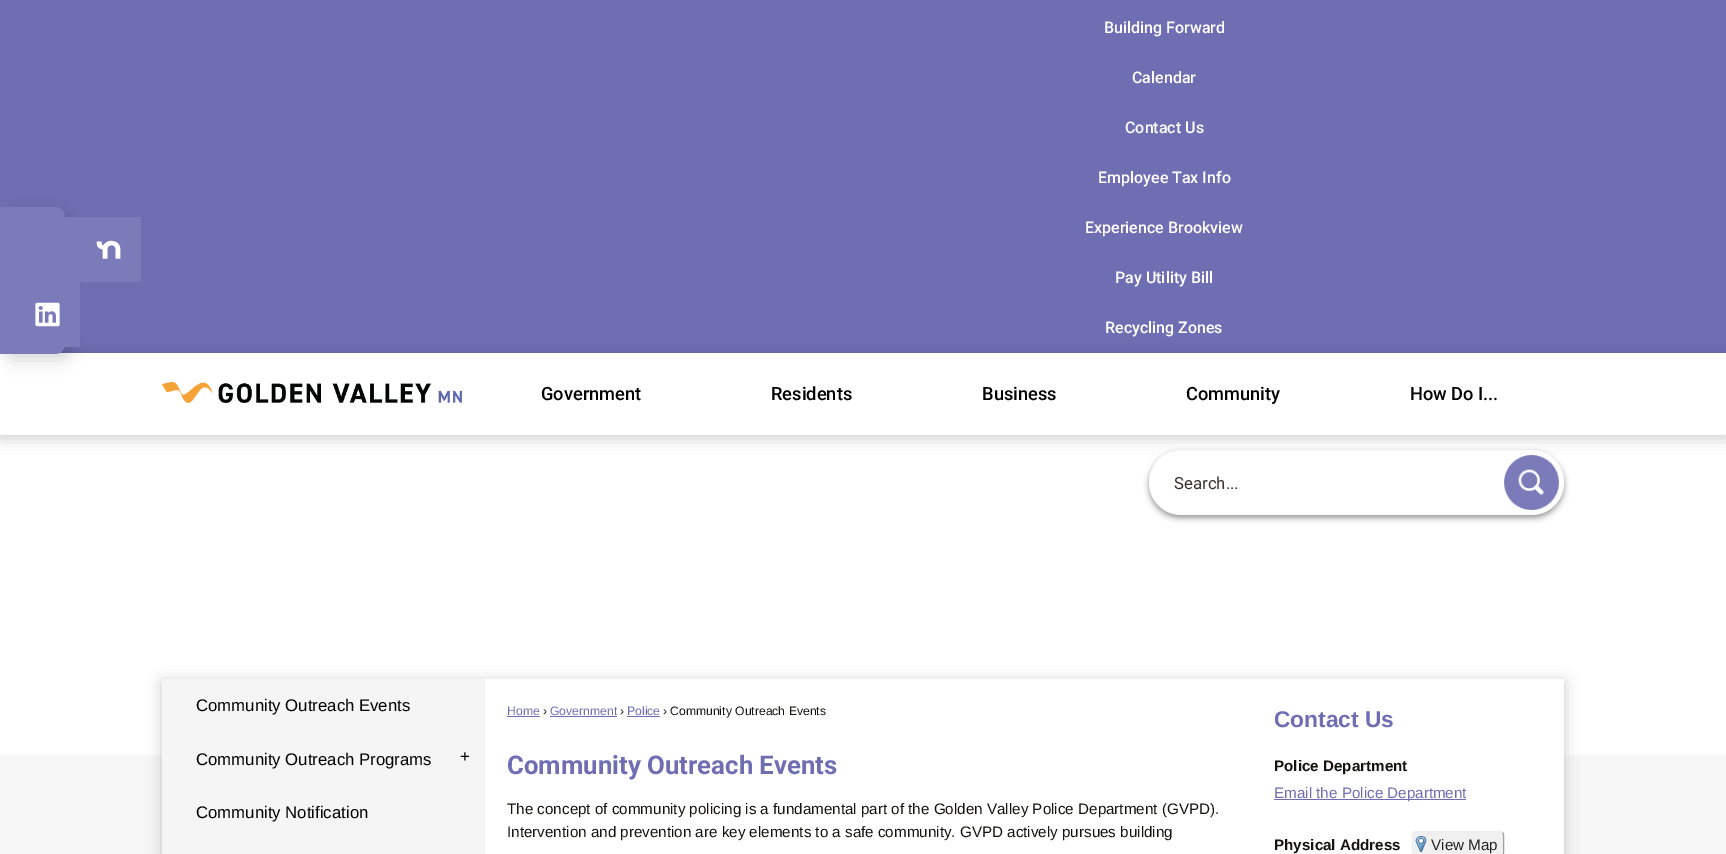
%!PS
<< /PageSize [1726 854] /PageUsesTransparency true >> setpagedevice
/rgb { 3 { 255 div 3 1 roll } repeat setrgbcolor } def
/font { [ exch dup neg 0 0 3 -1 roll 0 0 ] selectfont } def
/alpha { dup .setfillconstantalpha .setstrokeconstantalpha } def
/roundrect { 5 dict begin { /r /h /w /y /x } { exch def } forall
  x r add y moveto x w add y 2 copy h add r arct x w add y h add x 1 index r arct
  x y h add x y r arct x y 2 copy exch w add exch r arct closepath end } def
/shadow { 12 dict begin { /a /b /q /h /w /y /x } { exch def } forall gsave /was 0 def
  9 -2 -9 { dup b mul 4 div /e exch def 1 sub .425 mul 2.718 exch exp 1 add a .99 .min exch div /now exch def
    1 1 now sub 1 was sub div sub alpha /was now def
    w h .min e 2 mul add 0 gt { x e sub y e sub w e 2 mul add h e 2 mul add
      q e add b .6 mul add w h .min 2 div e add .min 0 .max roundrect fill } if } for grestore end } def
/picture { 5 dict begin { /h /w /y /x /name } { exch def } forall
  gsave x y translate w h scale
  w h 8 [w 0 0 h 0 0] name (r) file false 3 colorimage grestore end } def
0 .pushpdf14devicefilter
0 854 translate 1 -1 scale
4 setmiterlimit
255 255 255 rgb
0 0 1726 854 rectfill
111 110 179 rgb
0 0 1726 353 rectfill
0 0 0 rgb
5 213 65 147 10 8.5 0.16 shadow
1149 453 415 65 32.5 3 0.4 shadow
255 255 255 rgb
1149 450 415 65 32.5 roundrect fill
(img/4.rgb) 1504 455 55 55 picture
gsave
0 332 moveto 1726 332 lineto 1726 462 lineto 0 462 lineto closepath 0 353 moveto 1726 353 lineto 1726 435 lineto 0 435 lineto closepath eoclip newpath
0 0 0 rgb
0 356 1726 82 0 7.5 0.2 shadow
grestore
124 123 186 rgb
0 207 moveto 55 207 lineto 60.5 207 65 211.5 65 217 curveto 65 344 lineto 65 349.5 60.5 354 55 354 curveto 0 354 lineto closepath fill
65 217 76 65 rectfill
(img/1.rgb) 96 240 25 19 picture
64 282 16 65 rectfill
(img/2.rgb) 35 302 25 25 picture
(img/3.rgb) 162 382 300 21 picture
247 247 247 rgb
0 755 1726 99 rectfill
0 0 0 rgb
162 682 1402 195 0 7.5 0.2 shadow
[
  [485 679 1079 175 255 255 255]
  [162 679 323 175 245 245 245]
  [507 716 33 1 111 110 179]
  [550 716 67 1 111 110 179]
  [627 716 33 1 111 110 179]
  [1274 799 192 1 111 110 179]
] { aload pop rgb rectfill } forall
240 240 240 rgb
1412 831 92 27 4 roundrect fill
(img/5.rgb) 1415 836 12 16 picture
159 159 159 rgb
1502.5 832.5 moveto 1504.5 834.5 1503.5 842 1503.5 844.5 curveto 1503.5 851 lineto 1503.5 853.5 1504 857.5 1500 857.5 curveto 1430 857.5 lineto 1414 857 lineto 1413.5 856.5 lineto stroke
238 238 238 rgb
1413.5 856.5 moveto 1411.5 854.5 1412.5 847 1412.5 844.5 curveto 1412.5 838 lineto 1412.5 835.5 1412 831.5 1416 831.5 curveto 1486 831.5 lineto 1502 832 lineto 1502.5 832.5 lineto stroke
/Roboto-Medium 16 font
255 255 255 rgb
[
  [(Building Forward) 1104 33]
  [(Calendar) 1132 83]
  [(Contact Us) 1125 133]
  [(Employee Tax Info) 1098 183]
  [(Experience Brookview) 1085 233]
  [(Pay Utility Bill) 1115 283]
  [(Recycling Zones) 1105 333]
] { aload pop moveto show } forall
/Roboto-Medium 18.25 font
0 0 0 rgb
[
  [(Government) 541 400]
  [(Residents) 771 400]
  [(Business) 982 400]
  [(Community) 1186 400]
  [(How Do I...) 1410 400]
] { aload pop moveto show } forall
/Roboto-Regular 16.75 font
55 51 48 rgb
1174 489 moveto (Search...) show
/LiberationSans-Regular 16.75 font
0 0 0 rgb
[
  [(Community Outreach Events) 196 711]
  [(Community Outreach Programs) 196 765]
  [(+) 460 762]
  [(Community Notification) 196 818]
] { aload pop moveto show } forall
/LiberationSans-Regular 12.2 font
111 110 179 rgb
507 715 moveto (Home) show
20 20 12 rgb
543 715 moveto (›) show
111 110 179 rgb
550 715 moveto (Government) show
20 20 12 rgb
620 715 moveto (›) show
111 110 179 rgb
627 715 moveto (Police) show
20 20 12 rgb
663 715 moveto (›) show
670 715 moveto (Community Outreach Events) show
/Roboto-Bold 25.8 font
111 110 179 rgb
507 774 moveto (Community Outreach Events) show
/LiberationSans-Regular 15.2 font
20 20 12 rgb
507 814 moveto (The concept of community policing is a fundamental part of the Golden Valley Police Department \(GVPD\).) show
507 837 moveto (Intervention and prevention are key elements to a safe community. GVPD actively pursues building) show
/LiberationSans-Bold 22.75 font
111 110 179 rgb
1274 727 moveto (Contact Us) show
/LiberationSans-Bold 15.2 font
20 20 12 rgb
1274 771 moveto (Police Department) show
/LiberationSans-Regular 15.2 font
111 110 179 rgb
1274 798 moveto (Email the Police Department) show
/LiberationSans-Bold 15.2 font
20 20 12 rgb
1274 850 moveto (Physical Address) show
/LiberationSans-Regular 15.2 font
34 34 34 rgb
1431 850 moveto (View Map) show
.poppdf14devicefilter showpage
